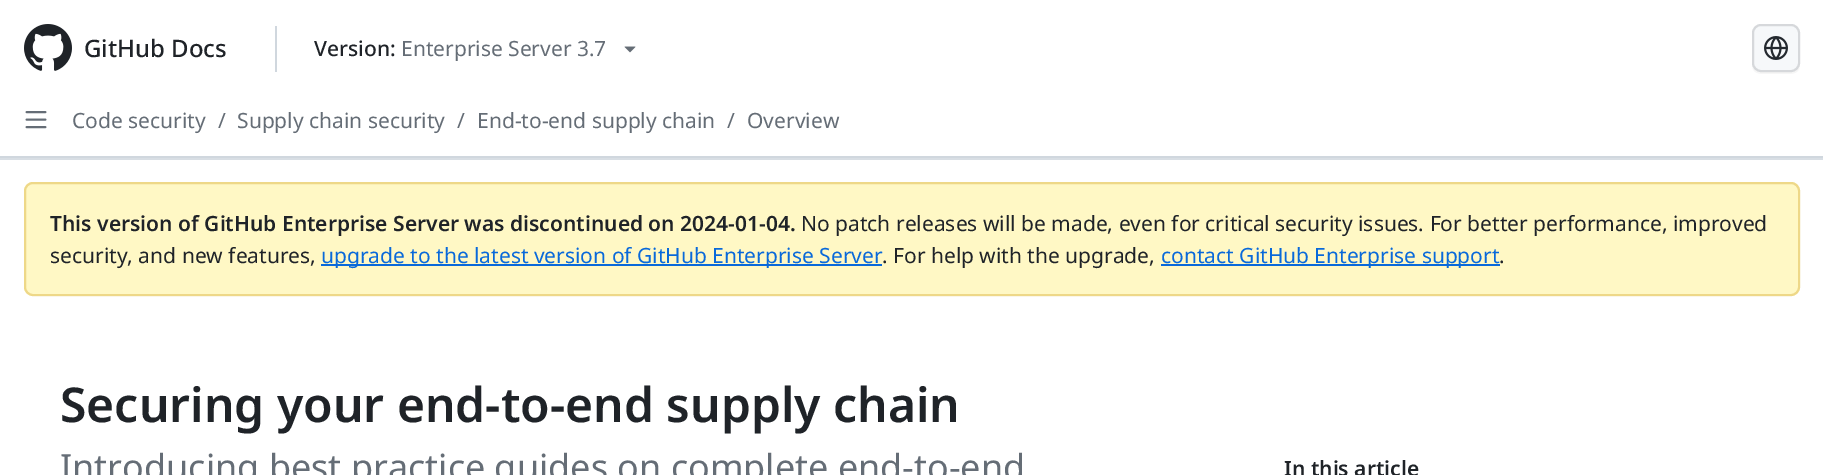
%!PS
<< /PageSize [1823 475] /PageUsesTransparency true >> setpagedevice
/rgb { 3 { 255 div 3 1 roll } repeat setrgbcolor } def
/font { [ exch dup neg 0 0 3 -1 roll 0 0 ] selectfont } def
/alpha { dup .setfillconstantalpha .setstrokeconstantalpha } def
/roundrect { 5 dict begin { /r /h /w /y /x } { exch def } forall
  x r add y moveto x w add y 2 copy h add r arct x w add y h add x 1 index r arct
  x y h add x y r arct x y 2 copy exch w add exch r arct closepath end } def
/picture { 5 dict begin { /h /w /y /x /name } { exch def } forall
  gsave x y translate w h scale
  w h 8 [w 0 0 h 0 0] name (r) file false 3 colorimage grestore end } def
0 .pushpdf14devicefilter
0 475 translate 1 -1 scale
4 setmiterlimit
255 255 255 rgb
0 0 1823 475 rectfill
216 222 228 rgb
0 158 1823 2 rectfill
208 215 222 rgb
0 156 1823 2 rectfill
(img/1.rgb) 24 24 48 47 picture
275 26 2 46 rectfill
(img/2.rgb) 624 46 12 7 picture
246 246 246 rgb
1752 63 moveto 1752 73 1757 74 1766 74 curveto 1786 74 lineto 1795 74 1800 73 1800 63 curveto 1800 68 1796 72 1791 72 curveto 1761 72 lineto 1756 72 1752 68 1752 63 curveto closepath fill
246 248 250 rgb
1752 24 48 48 9 roundrect fill
0.15 alpha
31 35 40 rgb
2 setlinewidth
1753 25 46 46 8 roundrect stroke
1 alpha
(img/3.rgb) 1764 36 24 24 picture
(img/4.rgb) 25 111 22 18 picture
255 248 197 rgb
24 182 1776 114 9 roundrect fill
0.4 alpha
212 167 44 rgb
25 183 1774 112 8 roundrect stroke
1 alpha
9 105 218 rgb
321 264 561 2 rectfill
1161 264 339 2 rectfill
/NotoSans-Medium 24 font
31 35 40 rgb
84 57 moveto (GitHub Docs) show
/NotoSans-Medium 21 font
314 56 moveto (Version:) show
/NotoSans-Regular 21 font
101 109 118 rgb
[
  [(Enterprise Server 3.7) 401 56]
  [(Code security) 72 128]
  [(/) 218 128]
  [(Supply chain security) 237 128]
  [(/) 457 128]
  [(End-to-end supply chain) 477 128]
  [(/) 727 128]
  [(Overview) 747 128]
] { aload pop moveto show } forall
/NotoSans-SemiBold 21 font
31 35 40 rgb
50 231 moveto (This version of GitHub Enterprise Server was discontinued on 2024-01-04.) show
/NotoSans-Regular 21 font
801 231 moveto (No patch releases will be made, even for critical security issues. For better performance, improved) show
50 263 moveto (security, and new features,) show
9 105 218 rgb
321 263 moveto (upgrade to the latest version of GitHub Enterprise Server) show
31 35 40 rgb
882 263 moveto (. For help with the upgrade,) show
9 105 218 rgb
1161 263 moveto (contact GitHub Enterprise support) show
31 35 40 rgb
1499 263 moveto (.) show
/NotoSans-SemiBold 48 font
60 422 moveto (Securing your end-to-end supply chain) show
/NotoSans-Regular 36 font
101 109 118 rgb
60 480 moveto (Introducing best practice guides on complete end-to-end) show
/NotoSans-SemiBold 21 font
31 35 40 rgb
1284 476 moveto (In this article) show
.poppdf14devicefilter showpage
